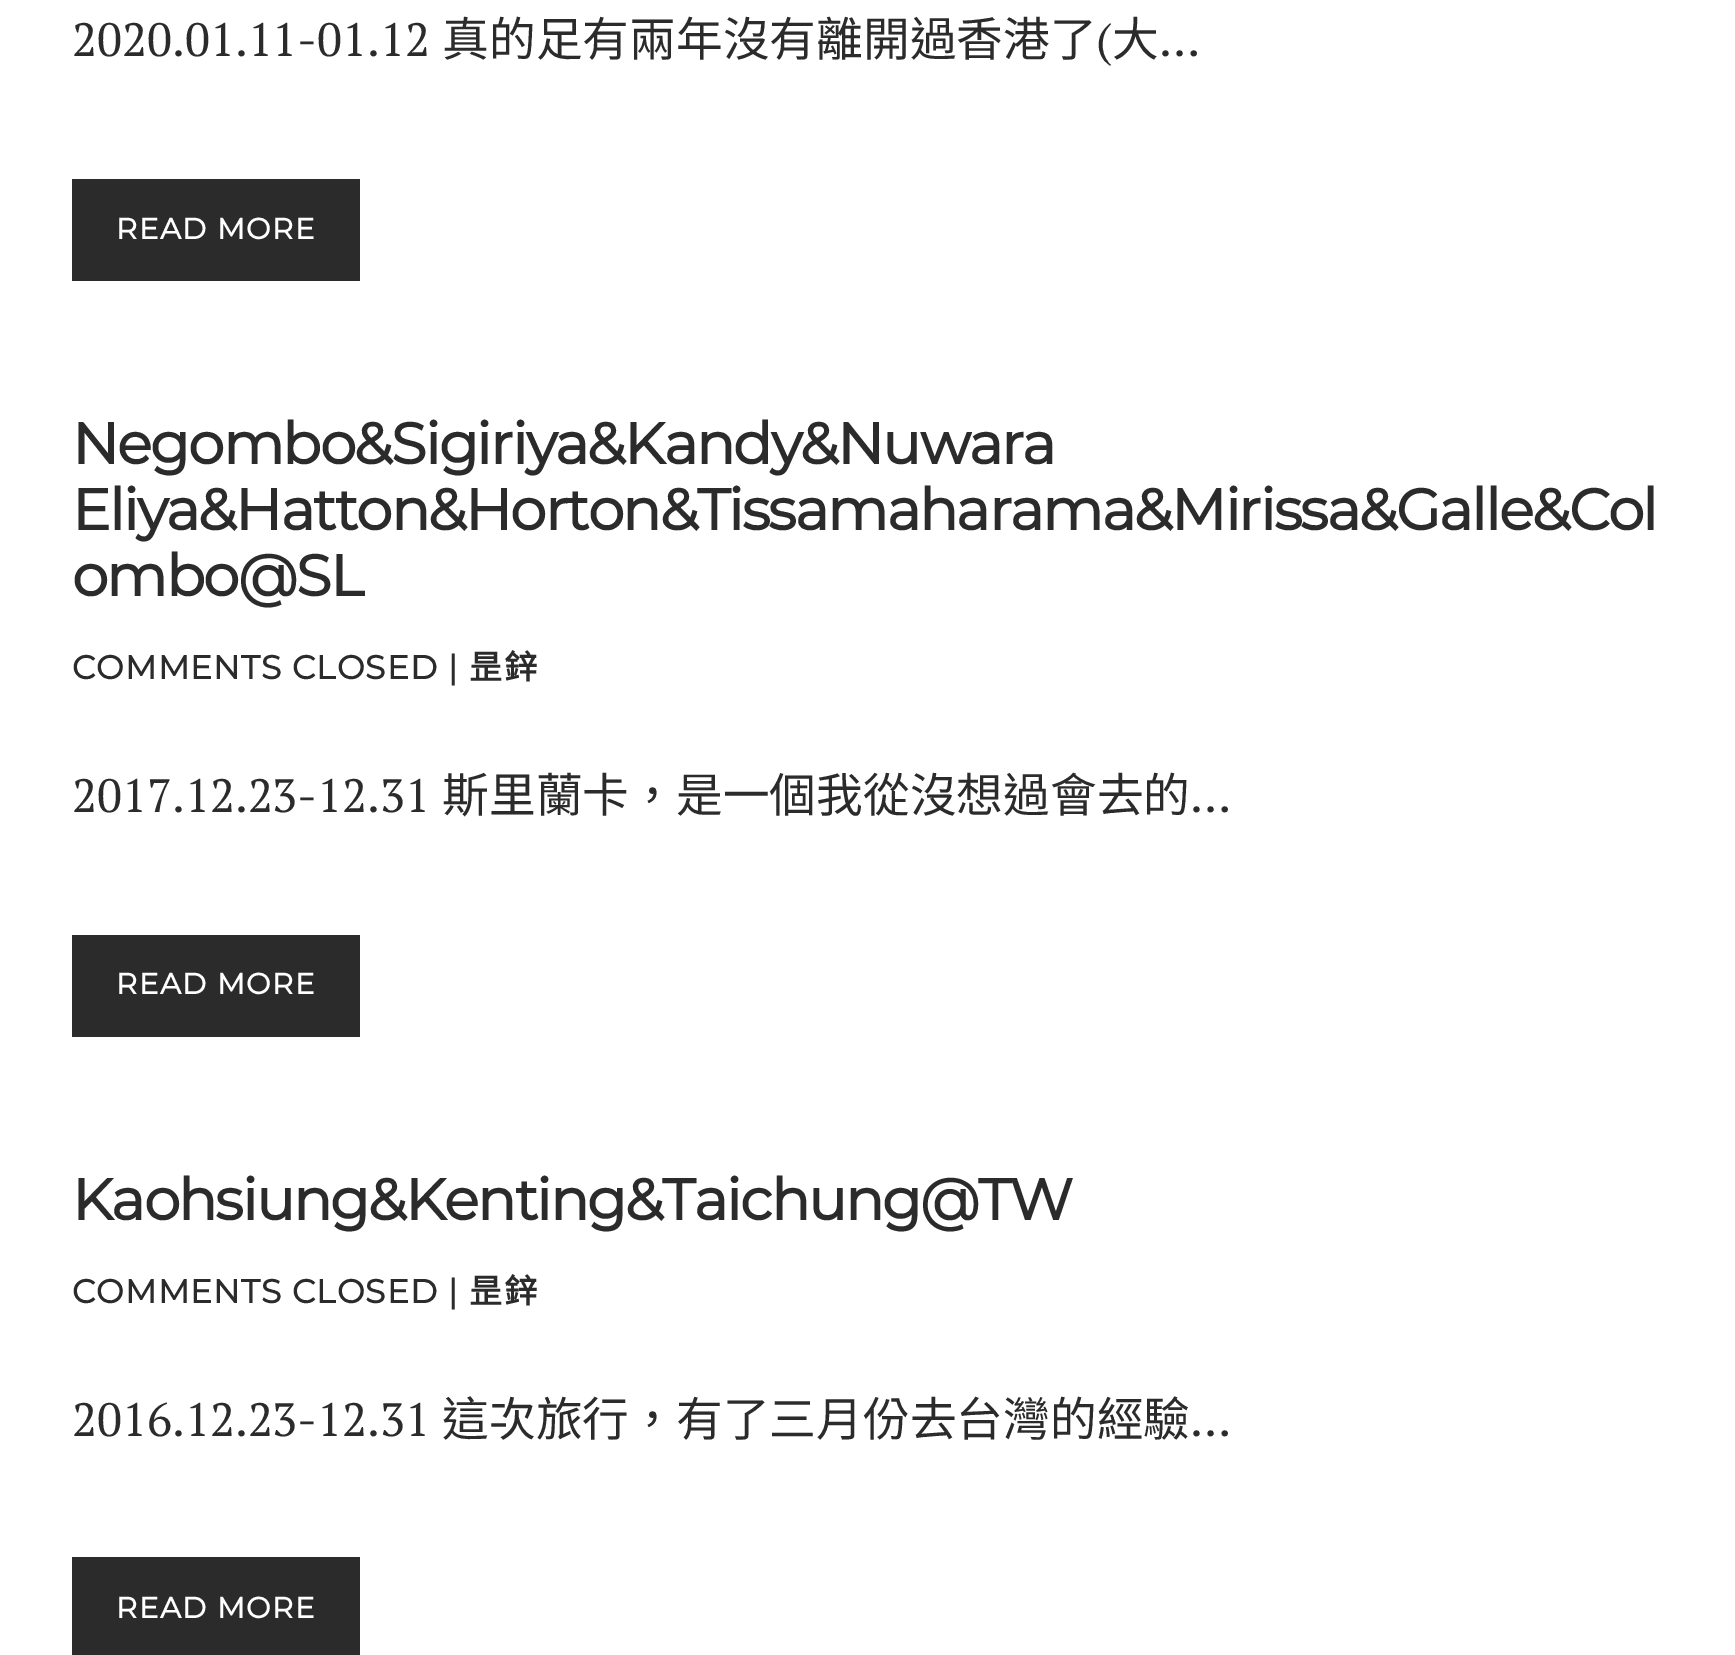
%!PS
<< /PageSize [1735 1655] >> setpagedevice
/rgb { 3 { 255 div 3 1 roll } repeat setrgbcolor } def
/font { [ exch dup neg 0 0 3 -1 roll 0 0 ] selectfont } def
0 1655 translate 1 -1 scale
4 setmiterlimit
255 255 255 rgb
0 0 1735 1655 rectfill
[
  [72 179 288 102 43 43 43]
  [72 935 288 102 43 43 43]
  [72 1557 288 98 43 43 43]
] { aload pop rgb rectfill } forall
/PTSerif-Regular 46.75 font
72 56 moveto (2020.01.11-01.12) show
/NotoSansCJKTC-Regular 46.75 font
442 56 moveto (真的足有兩年沒有離開過香港了) show
/PTSerif-Regular 46.75 font
1096 56 moveto (\() show
/NotoSansCJKTC-Regular 46.75 font
1112 56 moveto (大) show
/PTSerif-Regular 46.75 font
1159 56 moveto (…) show
/Montserrat-Bold 29.25 font
255 255 255 rgb
116 239 moveto 1.5 0 (READ MORE) ashow
/Montserrat-Bold 57.75 font
43 43 43 rgb
72 464 moveto -1.73 0 (Negombo&Sigiriya&Kandy&Nuwara) ashow
72 530 moveto -1.73 0 (Eliya&Hatton&Horton&Tissamaharama&Mirissa&Galle&Col) ashow
72 596 moveto -1.73 0 (ombo@SL) ashow
/Montserrat-Bold 33 font
72 679 moveto 1 0 (COMMENTS CLOSED) ashow
448 679 moveto 2 0 (|) ashow
/NotoSansCJKTC-Bold 33 font
469 679 moveto 2 0 (昰鋅) ashow
/PTSerif-Regular 46.75 font
72 812 moveto (2017.12.23-12.31) show
/NotoSansCJKTC-Regular 46.75 font
442 812 moveto (斯里蘭卡，是一個我從沒想過會去的) show
/PTSerif-Regular 46.75 font
1190 812 moveto (…) show
/Montserrat-Bold 29.25 font
255 255 255 rgb
116 994 moveto 1.5 0 (READ MORE) ashow
/Montserrat-Bold 57.75 font
43 43 43 rgb
72 1220 moveto -1.73 0 (Kaohsiung&Kenting&Taichung@TW) ashow
/Montserrat-Bold 33 font
72 1303 moveto 1 0 (COMMENTS CLOSED) ashow
448 1303 moveto 2 0 (|) ashow
/NotoSansCJKTC-Bold 33 font
469 1303 moveto 2 0 (昰鋅) ashow
/PTSerif-Regular 46.75 font
72 1436 moveto (2016.12.23-12.31) show
/NotoSansCJKTC-Regular 46.75 font
442 1436 moveto (這次旅行，有了三月份去台灣的經驗) show
/PTSerif-Regular 46.75 font
1190 1436 moveto (…) show
/Montserrat-Bold 29.25 font
255 255 255 rgb
116 1618 moveto 1.5 0 (READ MORE) ashow
showpage
